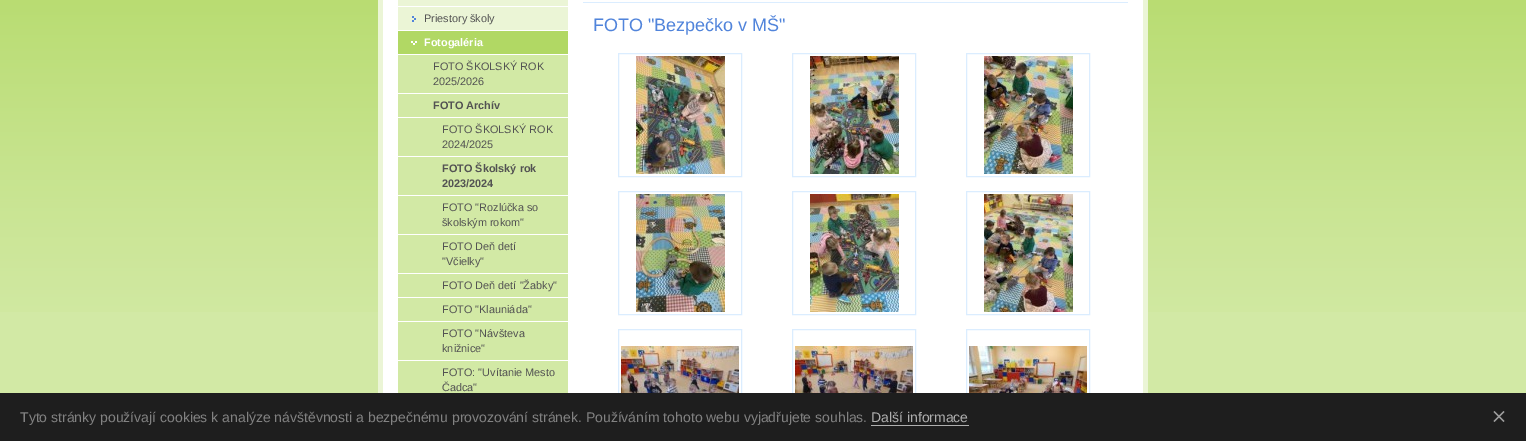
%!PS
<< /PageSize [1526 441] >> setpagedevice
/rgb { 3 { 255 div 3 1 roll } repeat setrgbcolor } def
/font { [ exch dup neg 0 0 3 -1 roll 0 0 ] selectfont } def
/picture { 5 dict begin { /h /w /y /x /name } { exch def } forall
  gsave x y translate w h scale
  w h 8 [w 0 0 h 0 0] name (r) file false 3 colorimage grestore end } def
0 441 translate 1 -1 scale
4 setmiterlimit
210 233 165 rgb
0 0 1526 441 rectfill
(img/1.rgb) 0 0 1526 312 picture
[
  [383 0 760 393 255 255 255]
  [1143 0 5 393 235 245 214]
  [378 0 5 393 235 245 214]
  [398 0 170 30 235 245 214]
  [398 6 170 1 255 255 255]
] { aload pop rgb rectfill } forall
(img/2.rgb) 412 16 4 6 picture
177 216 100 rgb
398 31 170 23 rectfill
(img/3.rgb) 411 41 6 4 picture
[
  [398 55 170 338 210 233 165]
  [398 93 170 1 255 255 255]
  [398 117 170 1 255 255 255]
  [398 156 170 1 255 255 255]
  [398 195 170 1 255 255 255]
  [398 234 170 1 255 255 255]
  [398 273 170 1 255 255 255]
  [398 297 170 1 255 255 255]
  [398 321 170 1 255 255 255]
  [398 360 170 1 255 255 255]
] { aload pop rgb rectfill } forall
219 237 255 rgb
618.5 329.5 123 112 rectstroke
792.5 329.5 123 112 rectstroke
966.5 329.5 123 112 rectstroke
30 30 30 rgb
0 393 1526 48 rectfill
175 175 175 rgb
871 425 98 1 rectfill
158 158 158 rgb
1494.5 411 moveto 1504.5 421 lineto 1503.5 422 lineto 1493.5 412 lineto closepath fill
1493.5 421 moveto 1503.5 411 lineto 1504.5 412 lineto 1494.5 422 lineto closepath fill
219 237 255 rgb
583 2 545 1 rectfill
618.5 53.5 123 123 rectstroke
(img/4.rgb) 636 56 89 118 picture
792.5 53.5 123 123 rectstroke
(img/5.rgb) 810 56 89 118 picture
966.5 53.5 123 123 rectstroke
(img/6.rgb) 984 56 89 118 picture
618.5 191.5 123 123 rectstroke
(img/7.rgb) 636 194 89 118 picture
792.5 191.5 123 123 rectstroke
(img/8.rgb) 810 194 89 118 picture
966.5 191.5 123 123 rectstroke
(img/9.rgb) 984 194 89 118 picture
(img/10.rgb) 621 346 118 47 picture
(img/11.rgb) 795 346 118 47 picture
(img/12.rgb) 969 346 118 47 picture
/LiberationSans-Regular 10.9 font
83 83 83 rgb
424 22 moveto (Priestory školy) show
/LiberationSans-Bold 10.9 font
255 255 255 rgb
424 46 moveto (Fotogaléria) show
/LiberationSans-Regular 10.9 font
83 83 83 rgb
433 70 moveto (FOTO ŠKOLSKÝ ROK) show
433 85 moveto (2025/2026) show
/LiberationSans-Bold 10.9 font
433 109 moveto (FOTO Archív) show
/LiberationSans-Regular 10.9 font
442 133 moveto (FOTO ŠKOLSKÝ ROK) show
442 148 moveto (2024/2025) show
/LiberationSans-Bold 10.9 font
442 172 moveto (FOTO Školský rok) show
442 187 moveto (2023/2024) show
/LiberationSans-Regular 10.9 font
[
  [(FOTO "Rozlúčka so) 442 211]
  [(školským rokom") 442 226]
  [(FOTO Deň detí) 442 250]
  [("Včielky") 442 265]
  [(FOTO Deň detí "Žabky") 442 289]
  [(FOTO "Klauniáda") 442 313]
  [(FOTO "Návšteva) 442 337]
  [(knižnice") 442 352]
  [(FOTO: "Uvítanie Mesto) 442 376]
  [(Čadca") 442 391]
] { aload pop moveto show } forall
/LiberationSans-Regular 14 font
130 130 130 rgb
20 422 moveto (Tyto stránky používají cookies k analýze návštěvnosti a bezpečnému provozování stránek. Používáním tohoto webu vyjadřujete souhlas.) show
175 175 175 rgb
871 422 moveto (Další informace) show
/LiberationSans-Regular 18 font
81 132 219 rgb
593 31 moveto (FOTO "Bezpečko v MŠ") show
showpage
